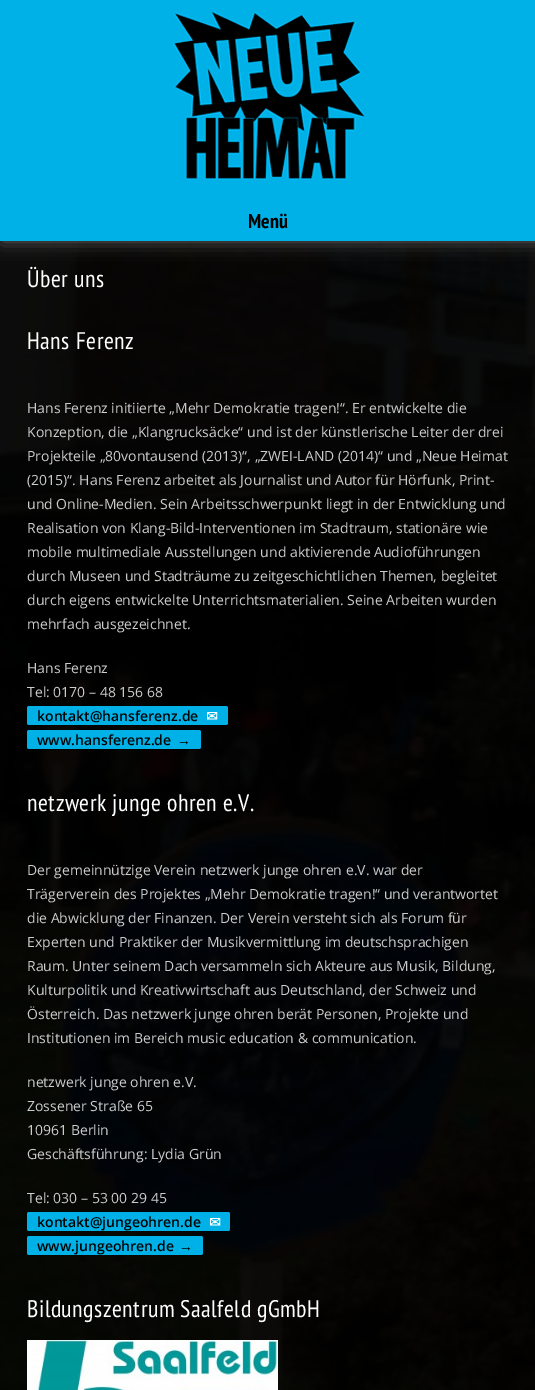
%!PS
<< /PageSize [535 1390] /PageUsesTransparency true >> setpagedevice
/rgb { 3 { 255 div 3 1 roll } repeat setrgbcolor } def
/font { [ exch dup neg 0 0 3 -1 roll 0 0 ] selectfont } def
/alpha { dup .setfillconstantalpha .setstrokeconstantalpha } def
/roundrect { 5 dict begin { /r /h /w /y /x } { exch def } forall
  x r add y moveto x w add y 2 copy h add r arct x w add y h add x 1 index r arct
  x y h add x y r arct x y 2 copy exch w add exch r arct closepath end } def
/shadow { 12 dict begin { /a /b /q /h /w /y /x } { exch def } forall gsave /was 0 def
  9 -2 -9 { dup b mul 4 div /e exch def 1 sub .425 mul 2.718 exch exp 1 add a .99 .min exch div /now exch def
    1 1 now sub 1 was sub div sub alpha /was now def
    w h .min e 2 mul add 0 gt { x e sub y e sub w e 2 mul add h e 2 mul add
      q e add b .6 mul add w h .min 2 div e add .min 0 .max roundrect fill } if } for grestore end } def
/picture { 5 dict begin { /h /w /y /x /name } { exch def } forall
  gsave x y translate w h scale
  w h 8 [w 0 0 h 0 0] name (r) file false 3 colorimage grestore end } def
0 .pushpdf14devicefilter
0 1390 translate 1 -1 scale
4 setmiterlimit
0 0 0 rgb
0 0 535 1390 rectfill
(img/3.rgb) 0 241 535 1149 picture
0.9 alpha
0 241 535 1149 rectfill
1 alpha
102 102 102 rgb
2 0 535 241 0 9 1 shadow
0 177 231 rgb
0 0 535 241 rectfill
(img/1.rgb) 173 11 192 169 picture
29 706 moveto 198 706 lineto 198 725 lineto 29 725 lineto 28 725 27 724 27 723 curveto 27 708 lineto 27 707 28 706 29 706 curveto closepath fill
198 706 moveto 226 706 lineto 227 706 228 707 228 708 curveto 228 723 lineto 228 724 227 725 226 725 curveto 198 725 lineto closepath fill
29 730 moveto 171 730 lineto 171 749 lineto 29 749 lineto 28 749 27 748 27 747 curveto 27 732 lineto 27 731 28 730 29 730 curveto closepath fill
171 730 moveto 199 730 lineto 200 730 201 731 201 732 curveto 201 747 lineto 201 748 200 749 199 749 curveto 171 749 lineto closepath fill
29 1212 moveto 201 1212 lineto 201 1231 lineto 29 1231 lineto 28 1231 27 1230 27 1229 curveto 27 1214 lineto 27 1213 28 1212 29 1212 curveto closepath fill
201 1212 moveto 228 1212 lineto 229 1212 230 1213 230 1214 curveto 230 1229 lineto 230 1230 229 1231 228 1231 curveto 201 1231 lineto closepath fill
29 1236 moveto 173 1236 lineto 173 1255 lineto 29 1255 lineto 28 1255 27 1254 27 1253 curveto 27 1238 lineto 27 1237 28 1236 29 1236 curveto closepath fill
173 1236 moveto 201 1236 lineto 202 1236 203 1237 203 1238 curveto 203 1253 lineto 203 1254 202 1255 201 1255 curveto 173 1255 lineto closepath fill
(img/2.rgb) 27 1340 251 50 picture
/PTSansNarrow-Bold 20 font
0 0 0 rgb
248 228 moveto (Menü) show
/PTSansNarrow-Regular 24 font
255 255 255 rgb
27 287 moveto 0.5 0 (Über uns) ashow
27 349 moveto 0.5 0 (Hans Ferenz) ashow
/OpenSans-Regular 14 font
204 204 204 rgb
[
  [(Hans Ferenz initiierte „Mehr Demokratie tragen!“. Er entwickelte die) 27 413]
  [(Konzeption, die „Klangrucksäcke“ und ist der künstlerische Leiter der drei) 27 437]
  [(Projekteile „80vontausend \(2013\)“, „ZWEI-LAND \(2014\)“ und „Neue Heimat) 27 461]
  [(\(2015\)“. Hans Ferenz arbeitet als Journalist und Autor für Hörfunk, Print-) 27 485]
  [(und Online-Medien. Sein Arbeitsschwerpunkt liegt in der Entwicklung und) 27 509]
  [(Realisation von Klang-Bild-Interventionen im Stadtraum, stationäre wie) 27 533]
  [(mobile multimediale Ausstellungen und aktivierende Audioführungen) 27 557]
  [(durch Museen und Stadträume zu zeitgeschichtlichen Themen, begleitet) 27 581]
  [(durch eigens entwickelte Unterrichtsmaterialien. Seine Arbeiten wurden) 27 605]
  [(mehrfach ausgezeichnet.) 27 629]
  [(Hans Ferenz) 27 673]
  [(Tel: 0170 – 48 156 68) 27 697]
] { aload pop moveto show } forall
/OpenSans-SemiBold 14 font
0 0 0 rgb
37 721 moveto (kontakt@hansferenz.de) show
/DejaVuSans-Bold 14 font
255 255 255 rgb
206 721 moveto (✉) show
/OpenSans-SemiBold 14 font
0 0 0 rgb
37 745 moveto (www.hansferenz.de) show
/LiberationSans-Bold 14 font
177 745 moveto (→) show
/PTSansNarrow-Regular 24 font
255 255 255 rgb
27 811 moveto 0.5 0 (netzwerk junge ohren e.V.) ashow
/OpenSans-Regular 14 font
204 204 204 rgb
[
  [(Der gemeinnützige Verein netzwerk junge ohren e.V. war der) 27 875]
  [(Trägerverein des Projektes „Mehr Demokratie tragen!“ und verantwortet) 27 899]
  [(die Abwicklung der Finanzen. Der Verein versteht sich als Forum für) 27 923]
  [(Experten und Praktiker der Musikvermittlung im deutschsprachigen) 27 947]
  [(Raum. Unter seinem Dach versammeln sich Akteure aus Musik, Bildung,) 27 971]
  [(Kulturpolitik und Kreativwirtschaft aus Deutschland, der Schweiz und) 27 995]
  [(Österreich. Das netzwerk junge ohren berät Personen, Projekte und) 27 1019]
  [(Institutionen im Bereich music education & communication.) 27 1043]
  [(netzwerk junge ohren e.V.) 27 1087]
  [(Zossener Straße 65) 27 1111]
  [(10961 Berlin) 27 1135]
  [(Geschäftsführung: Lydia Grün) 27 1159]
  [(Tel: 030 – 53 00 29 45) 27 1203]
] { aload pop moveto show } forall
/OpenSans-SemiBold 14 font
0 0 0 rgb
37 1227 moveto (kontakt@jungeohren.de) show
/DejaVuSans-Bold 14 font
255 255 255 rgb
209 1227 moveto (✉) show
/OpenSans-SemiBold 14 font
0 0 0 rgb
37 1251 moveto (www.jungeohren.de) show
/LiberationSans-Bold 14 font
179 1251 moveto (→) show
/PTSansNarrow-Regular 24 font
255 255 255 rgb
27 1317 moveto 0.5 0 (Bildungszentrum Saalfeld gGmbH) ashow
.poppdf14devicefilter showpage
